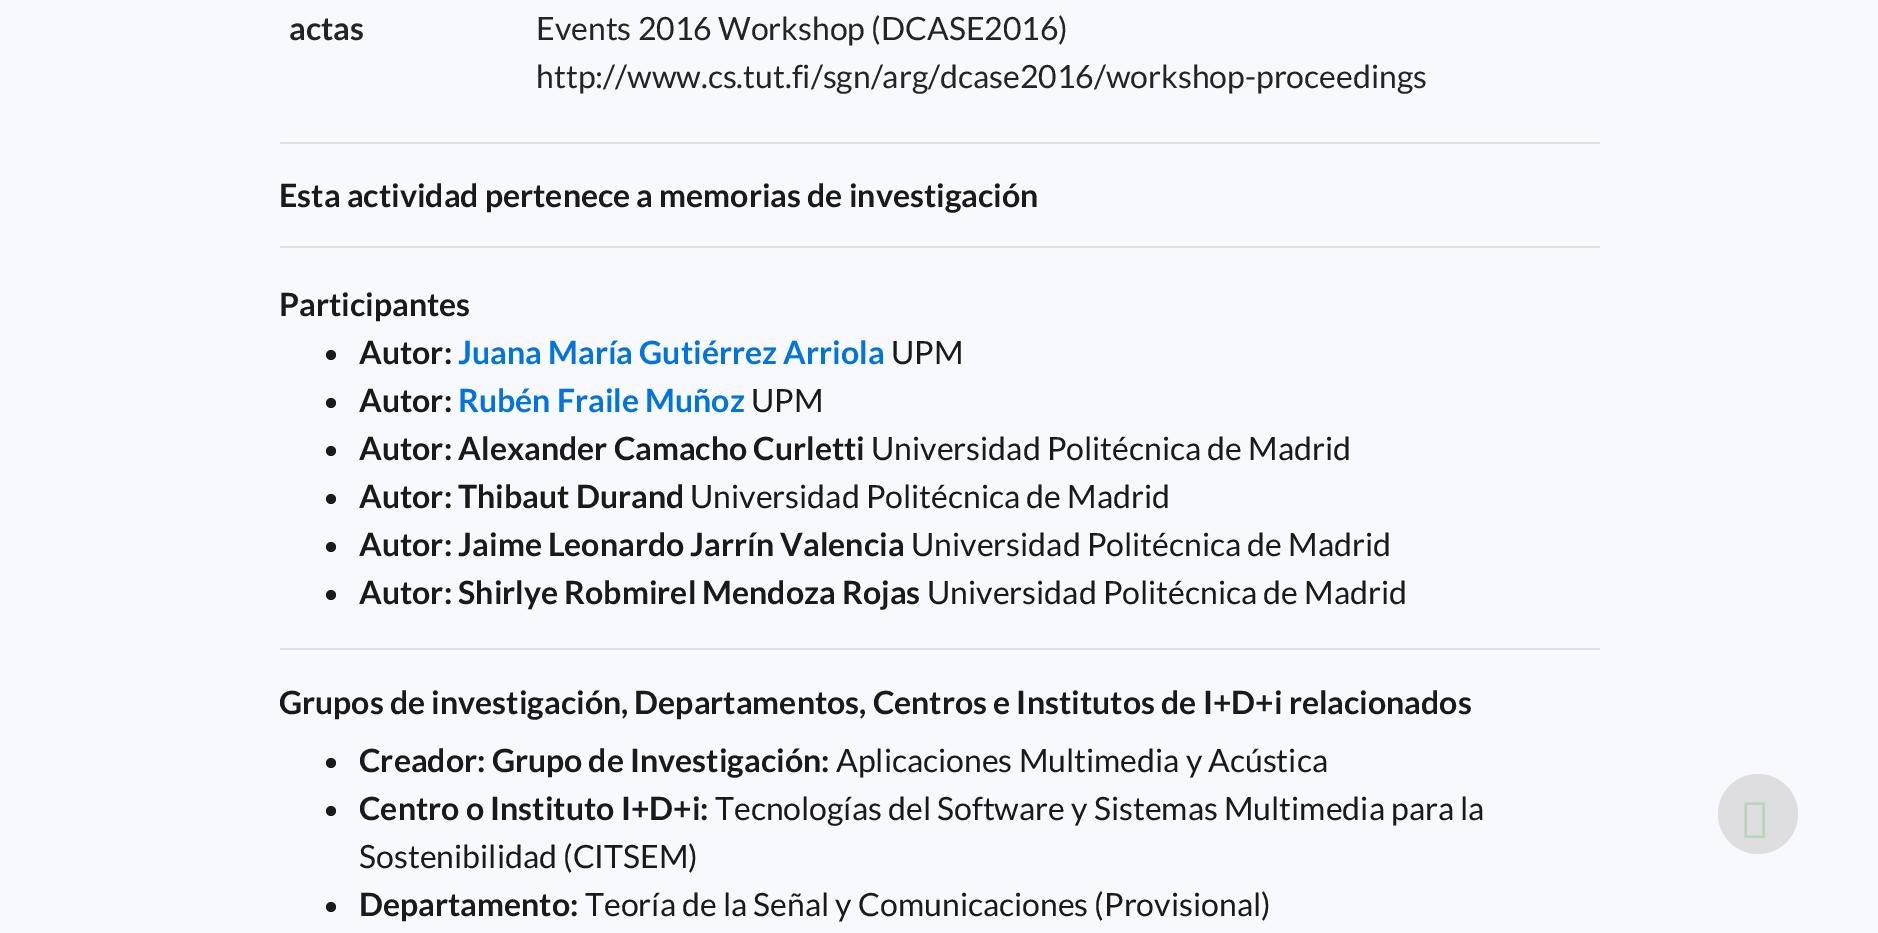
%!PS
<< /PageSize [1878 933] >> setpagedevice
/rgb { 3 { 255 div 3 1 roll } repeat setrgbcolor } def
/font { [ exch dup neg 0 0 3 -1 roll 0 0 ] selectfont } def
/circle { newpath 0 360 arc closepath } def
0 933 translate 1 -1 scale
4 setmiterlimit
248 249 255 rgb
0 0 1878 933 rectfill
223 224 230 rgb
280 142 1320 2 rectfill
280 246 1320 2 rectfill
26 26 26 rgb
331 355 5 circle fill
331 403 5 circle fill
331 451 5 circle fill
331 499 5 circle fill
331 547 5 circle fill
331 595 5 circle fill
223 224 230 rgb
280 648 1320 2 rectfill
26 26 26 rgb
331 763 5 circle fill
331 811 5 circle fill
331 907 5 circle fill
222 222 224 rgb
1758 814 40 circle fill
185 212 188 rgb
1744.5 838 moveto 1744.5 802.5 lineto 1765 802.5 lineto 1765 838 lineto closepath 1747 835.5 moveto 1762.5 835.5 lineto 1762.5 805 lineto 1747 805 lineto closepath fill
/Lato-Bold 32 font
33 37 41 rgb
289 40 moveto (actas) show
/Lato-Regular 32 font
536 40 moveto (Events 2016 Workshop \(DCASE2016\)) show
536 88 moveto (http://www.cs.tut.fi/sgn/arg/dcase2016/workshop-proceedings) show
/Lato-Bold 32 font
26 26 26 rgb
[
  [(Esta actividad pertenece a memorias de investigación) 279 207]
  [(Participantes) 279 316]
  [(Autor:) 359 364]
] { aload pop moveto show } forall
3 116 221 rgb
458 364 moveto (Juana María Gutiérrez Arriola) show
/Lato-Regular 32 font
26 26 26 rgb
891 364 moveto (UPM) show
/Lato-Bold 32 font
359 412 moveto (Autor:) show
3 116 221 rgb
458 412 moveto (Rubén Fraile Muñoz) show
/Lato-Regular 32 font
26 26 26 rgb
751 412 moveto (UPM) show
/Lato-Bold 32 font
359 460 moveto (Autor: Alexander Camacho Curletti) show
/Lato-Regular 32 font
871 460 moveto (Universidad Politécnica de Madrid) show
/Lato-Bold 32 font
359 508 moveto (Autor: Thibaut Durand) show
/Lato-Regular 32 font
690 508 moveto (Universidad Politécnica de Madrid) show
/Lato-Bold 32 font
359 556 moveto (Autor: Jaime Leonardo Jarrín Valencia) show
/Lato-Regular 32 font
911 556 moveto (Universidad Politécnica de Madrid) show
/Lato-Bold 32 font
359 604 moveto (Autor: Shirlye Robmirel Mendoza Rojas) show
/Lato-Regular 32 font
927 604 moveto (Universidad Politécnica de Madrid) show
/Lato-Bold 32 font
279 714 moveto (Grupos de investigación, Departamentos, Centros e Institutos de I+D+i relacionados) show
359 772 moveto (Creador: Grupo de Investigación:) show
/Lato-Regular 32 font
836 772 moveto (Aplicaciones Multimedia y Acústica) show
/Lato-Bold 32 font
359 820 moveto (Centro o Instituto I+D+i:) show
/Lato-Regular 32 font
715 820 moveto (Tecnologías del Software y Sistemas Multimedia para la) show
359 868 moveto (Sostenibilidad \(CITSEM\)) show
/Lato-Bold 32 font
359 916 moveto (Departamento:) show
/Lato-Regular 32 font
585 916 moveto (Teoría de la Señal y Comunicaciones \(Provisional\)) show
showpage
